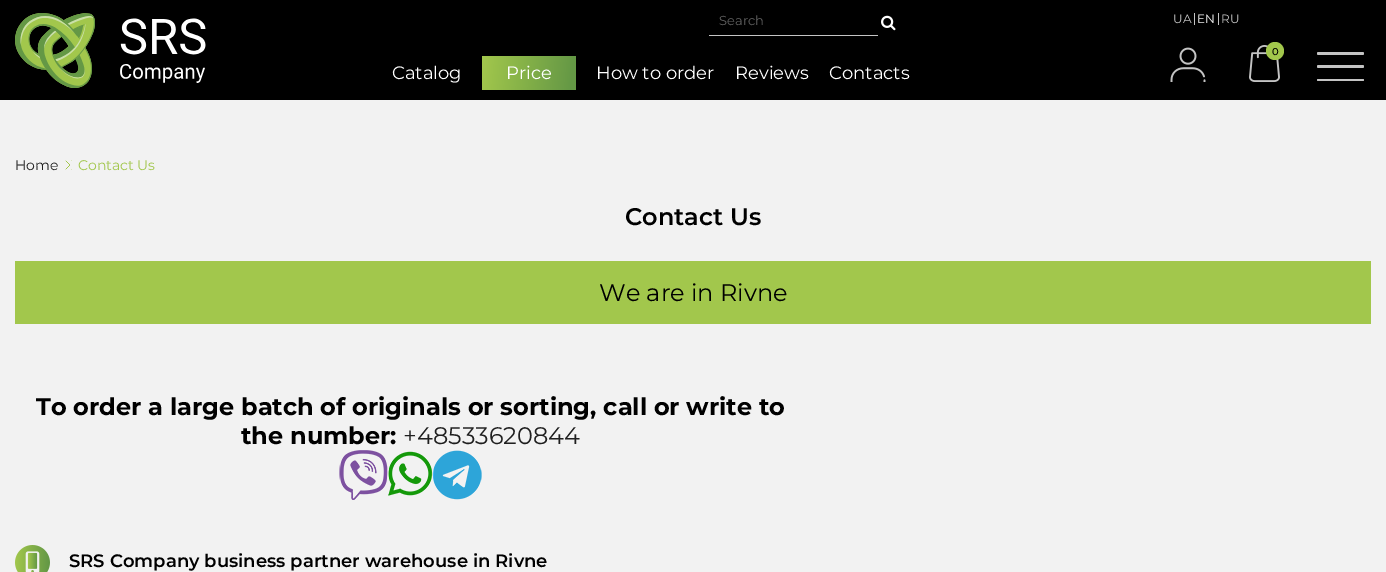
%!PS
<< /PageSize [1386 572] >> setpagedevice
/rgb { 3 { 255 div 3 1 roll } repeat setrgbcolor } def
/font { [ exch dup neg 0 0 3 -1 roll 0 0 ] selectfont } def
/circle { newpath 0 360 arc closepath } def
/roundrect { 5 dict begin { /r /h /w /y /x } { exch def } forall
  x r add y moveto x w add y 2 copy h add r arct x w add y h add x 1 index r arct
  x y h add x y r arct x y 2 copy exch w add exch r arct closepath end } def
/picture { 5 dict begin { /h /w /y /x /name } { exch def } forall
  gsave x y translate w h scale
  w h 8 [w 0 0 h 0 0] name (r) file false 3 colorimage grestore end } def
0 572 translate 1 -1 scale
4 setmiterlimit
242 242 242 rgb
0 0 1386 572 rectfill
0 0 0 rgb
0 0 1386 100 rectfill
(img/1.rgb) 15 13 191 75 picture
(img/2.rgb) 881 15 15 16 picture
196 196 196 rgb
709 35 169 1 rectfill
gsave 482 56 moveto 576 56 lineto 576 90 lineto 482 90 lineto closepath clip newpath
<< /ShadingType 2 /ColorSpace /DeviceRGB /Coords [481 68 577 78] /Extend [true true] /Function << /FunctionType 3 /Domain [0 1] /Functions [<< /FunctionType 2 /Domain [0 1] /C0 [0.635 0.78 0.298] /C1 [0.635 0.78 0.298] /N 1 >> << /FunctionType 2 /Domain [0 1] /C0 [0.635 0.78 0.298] /C1 [0.392 0.596 0.271] /N 1 >> << /FunctionType 2 /Domain [0 1] /C0 [0.392 0.596 0.271] /C1 [0.392 0.596 0.271] /N 1 >>] /Bounds [0.01 0.96] /Encode [0 1 0 1 0 1] >> >> shfill grestore
1194 13 1 12 rectfill
1218 13 1 12 rectfill
(img/3.rgb) 1170 47 36 35 picture
(img/4.rgb) 1249 45 31 37 picture
162 199 76 rgb
1275 51 9 circle fill
196 196 196 rgb
1317 79 47 2 1 roundrect fill
1317 65 47 3 1.5 roundrect fill
1317 52 47 3 1.5 roundrect fill
(img/5.rgb) 65 160 7 10 picture
162 199 76 rgb
15 261 1356 63 rectfill
(img/6.rgb) 339 450 143 50 picture
(img/7.rgb) 15 545 35 27 picture
/Montserrat-Regular 13 font
98 98 98 rgb
719 25 moveto (Search) show
/Montserrat-Regular 18 font
255 255 255 rgb
[
  [(Catalog) 392 79]
  [(Price) 506 79]
  [(How to order) 596 79]
  [(Reviews) 735 79]
  [(Contacts) 829 79]
] { aload pop moveto show } forall
/Montserrat-Regular 12 font
196 196 196 rgb
1173 23 moveto (UA) show
240 240 240 rgb
1197 23 moveto (EN) show
196 196 196 rgb
1221 23 moveto (RU) show
/Montserrat-Medium 10 font
0 0 0 rgb
1272 55 moveto (0) show
/Montserrat-Regular 14 font
31 31 31 rgb
15 170 moveto (Home) show
162 199 76 rgb
78 170 moveto (Contact Us) show
/Montserrat-SemiBold 24 font
0 0 0 rgb
625 225 moveto (Contact Us) show
/Montserrat-Regular 24 font
599 301 moveto (We are in Rivne) show
/Montserrat-Bold 24 font
36 415 moveto (To order a large batch of originals or sorting, call or write to) show
241 444 moveto (the number:) show
/Montserrat-Regular 24 font
31 31 31 rgb
403 444 moveto (+48533620844) show
/Montserrat-SemiBold 18 font
0 0 0 rgb
69 567 moveto (SRS Company business partner warehouse in Rivne) show
showpage
